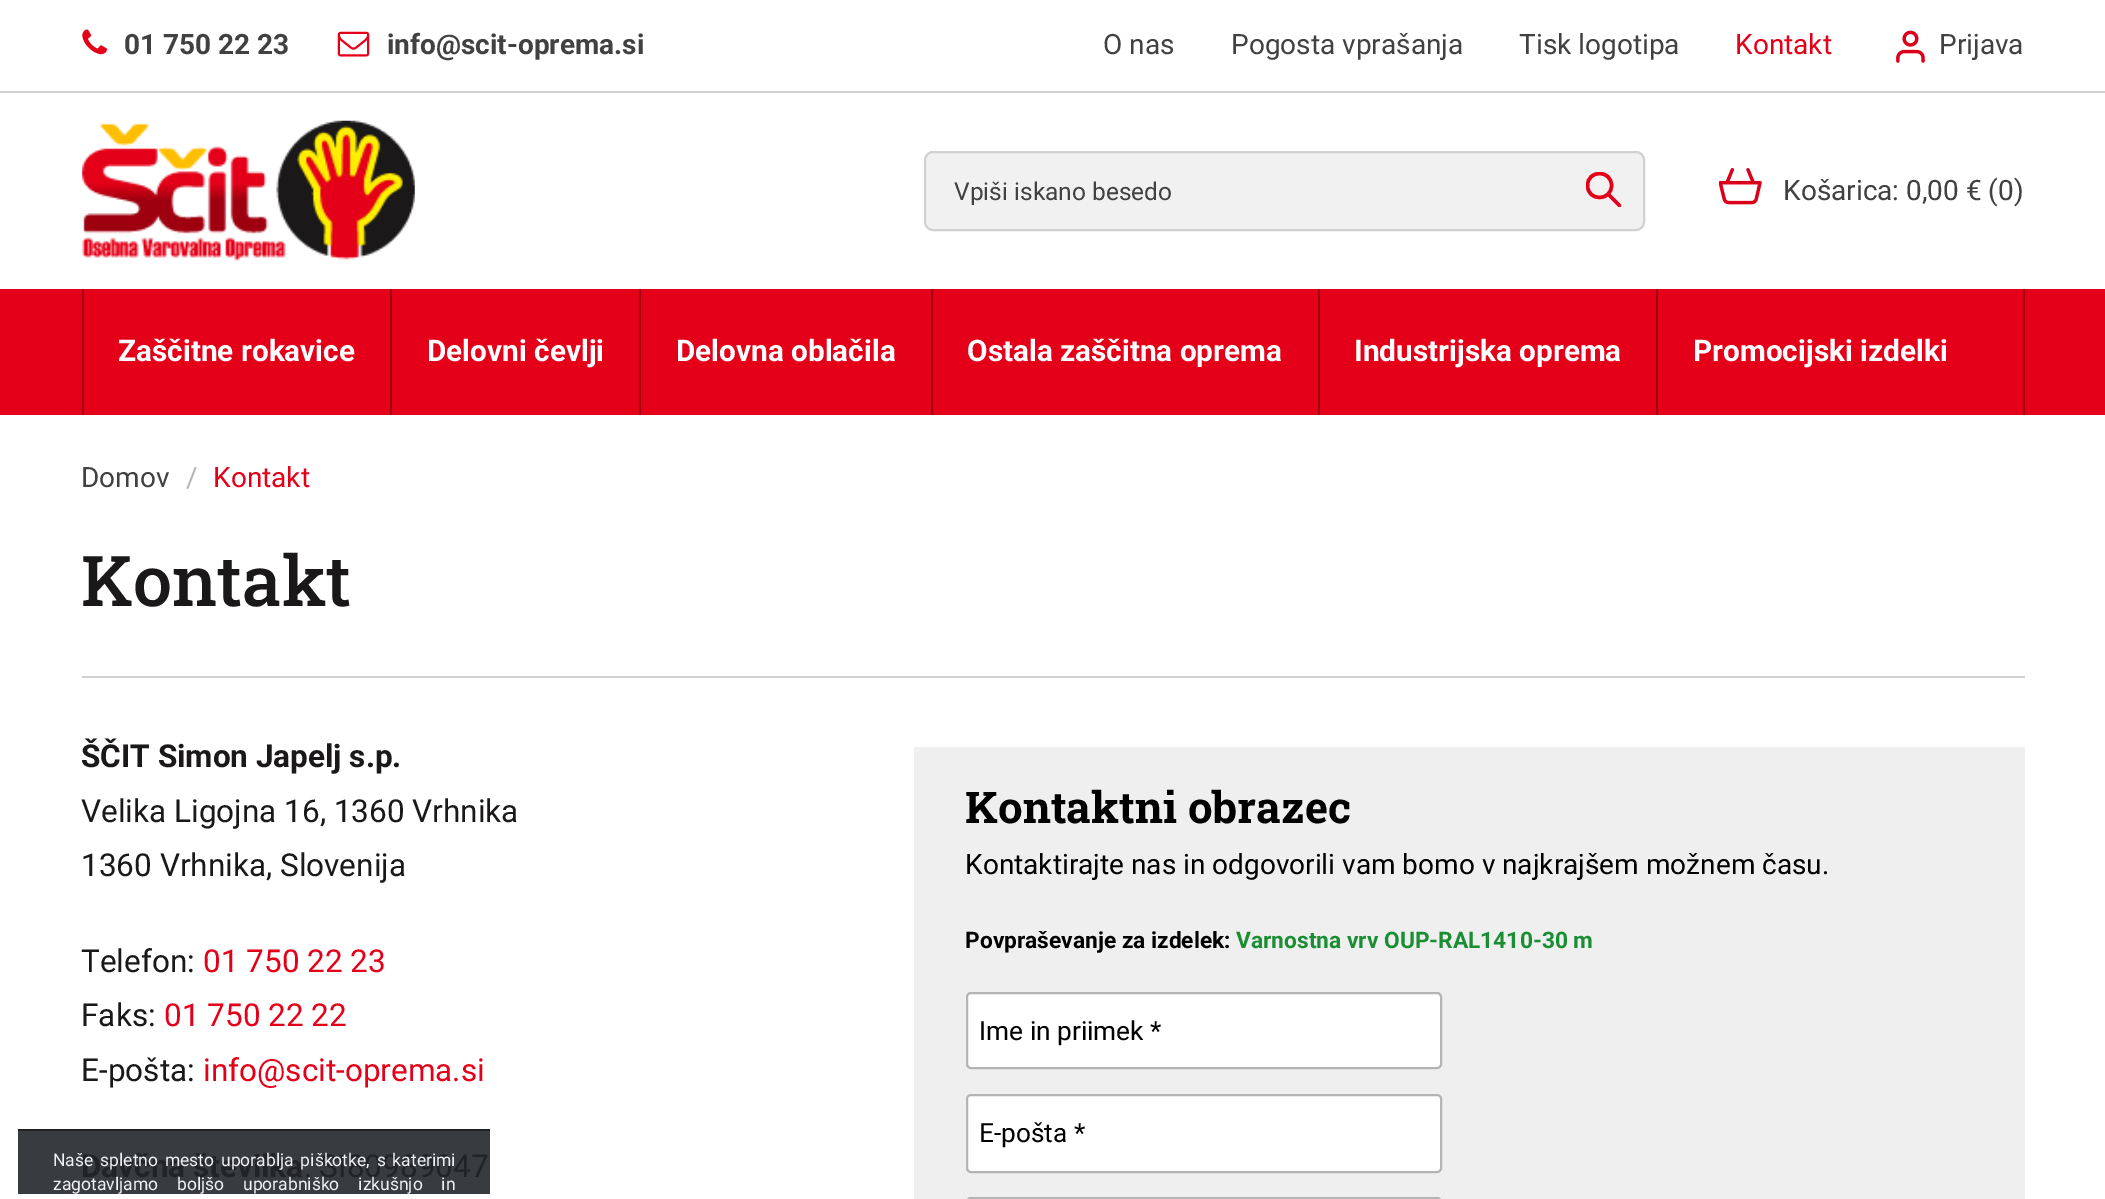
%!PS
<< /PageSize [2105 1199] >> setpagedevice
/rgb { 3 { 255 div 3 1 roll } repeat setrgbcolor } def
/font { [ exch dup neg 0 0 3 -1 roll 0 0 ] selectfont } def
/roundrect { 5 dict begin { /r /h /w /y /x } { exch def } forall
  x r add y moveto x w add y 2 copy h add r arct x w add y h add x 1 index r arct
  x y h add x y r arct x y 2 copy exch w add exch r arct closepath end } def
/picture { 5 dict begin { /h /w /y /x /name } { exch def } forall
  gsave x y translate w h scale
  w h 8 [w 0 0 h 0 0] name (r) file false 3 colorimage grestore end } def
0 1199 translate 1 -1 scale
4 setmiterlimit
255 255 255 rgb
0 0 2105 1199 rectfill
56 59 63 rgb
18 1131 472 63 rectfill
209 209 209 rgb
0 91 2105 2 rectfill
(img/1.rgb) 82 29 25 26 picture
(img/2.rgb) 337 31 33 26 picture
(img/3.rgb) 1896 30 29 33 picture
(img/4.rgb) 82 120 333 141 picture
241 241 241 rgb
925 152 719 78 8 roundrect gsave fill grestore
209 209 209 rgb
2 setlinewidth
stroke
gsave
1586 172 35 35 rectclip
229 0 25 rgb
3.5 setlinewidth
1 setlinecap
1 setlinejoin
1609 195 moveto 1619.5 205.5 lineto closepath 1587.5 185.5 moveto 1587.5 169.5 1611.5 169.5 1611.5 185.5 curveto 1611.5 201.5 1587.5 201.5 1587.5 185.5 curveto closepath stroke
grestore
(img/5.rgb) 1719 168 43 37 picture
[
  [0 289 2105 126 229 0 25]
  [390 289 2 126 159 0 16]
  [82 289 2 126 159 0 16]
  [639 289 2 126 159 0 16]
  [931 289 2 126 159 0 16]
  [1318 289 2 126 159 0 16]
  [1656 289 2 126 159 0 16]
  [2023 289 2 126 159 0 16]
  [82 676 1943 2 209 209 209]
  [914 747 1111 452 239 239 239]
] { aload pop rgb rectfill } forall
255 255 255 rgb
967 993 474 75 4 roundrect gsave fill grestore
180 180 180 rgb
stroke
255 255 255 rgb
967 1095 474 77 4 roundrect gsave fill grestore
180 180 180 rgb
stroke
967 1198 474 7 4 roundrect stroke
32 34 38 rgb
18 1129 472 2 rectfill
/Roboto-Bold 28 font
65 65 65 rgb
124 54 moveto (01 750 22 23) show
387 54 moveto (info@scit-oprema.si) show
/Roboto-Regular 28 font
[
  [(O nas) 1103 54]
  [(Pogosta vprašanja) 1231 54]
  [(Tisk logotipa) 1519 54]
] { aload pop moveto show } forall
229 0 25 rgb
1735 54 moveto (Kontakt) show
65 65 65 rgb
1939 54 moveto (Prijava) show
/Roboto-Regular 24.5 font
954 200 moveto (Vpiši iskano besedo) show
/Roboto-Regular 28 font
1783 200 moveto (Košarica: 0,00 € \(0\)) show
/Roboto-Bold 29.75 font
255 255 255 rgb
[
  [(Zaščitne rokavice) 118 361]
  [(Delovni čevlji) 427 361]
  [(Delovna oblačila) 676 361]
  [(Ostala zaščitna oprema) 967 361]
  [(Industrijska oprema) 1354 361]
  [(Promocijski izdelki) 1693 361]
] { aload pop moveto show } forall
/Roboto-Regular 28 font
65 65 65 rgb
81 487 moveto (Domov) show
180 180 180 rgb
186 487 moveto (/) show
229 0 25 rgb
213 487 moveto (Kontakt) show
/RobotoSlab-Medium 70 font
26 24 24 rgb
81 606 moveto (Kontakt) show
/Roboto-Bold 31.5 font
81 767 moveto (ŠČIT Simon Japelj s.p.) show
/Roboto-Regular 31.5 font
[
  [(Velika Ligojna 16, 1360 Vrhnika) 81 822]
  [(1360 Vrhnika, Slovenija) 81 876]
  [(Telefon:) 81 972]
] { aload pop moveto show } forall
229 0 25 rgb
203 972 moveto (01 750 22 23) show
26 24 24 rgb
81 1026 moveto (Faks:) show
229 0 25 rgb
164 1026 moveto (01 750 22 22) show
26 24 24 rgb
81 1081 moveto (E-pošta:) show
229 0 25 rgb
203 1081 moveto (info@scit-oprema.si) show
/Roboto-Bold 31.5 font
33 35 40 rgb
81 1177 moveto (Davčna številka) show
/Roboto-Regular 31.5 font
304 1177 moveto (: SI80989047) show
/RobotoSlab-Bold 43.75 font
0 0 0 rgb
965 823 moveto (Kontaktni obrazec) show
/Roboto-Regular 28 font
965 874 moveto (Kontaktirajte nas in odgovorili vam bomo v najkrajšem možnem času.) show
/Roboto-Bold 22.75 font
965 948 moveto (Povpraševanje za izdelek:) show
26 142 51 rgb
1236 948 moveto (Varnostna vrv OUP-RAL1410-30 m) show
/Roboto-Regular 26.25 font
0 0 0 rgb
979 1040 moveto (Ime in priimek *) show
979 1142 moveto (E-pošta *) show
/Roboto-Regular 17.5 font
241 241 243 rgb
53 1166 moveto 2.5 0 32 (Naše spletno mesto uporablja piškotke, s katerimi) widthshow
53 1190 moveto 14.5 0 32 (zagotavljamo boljšo uporabniško izkušnjo in) widthshow
showpage
